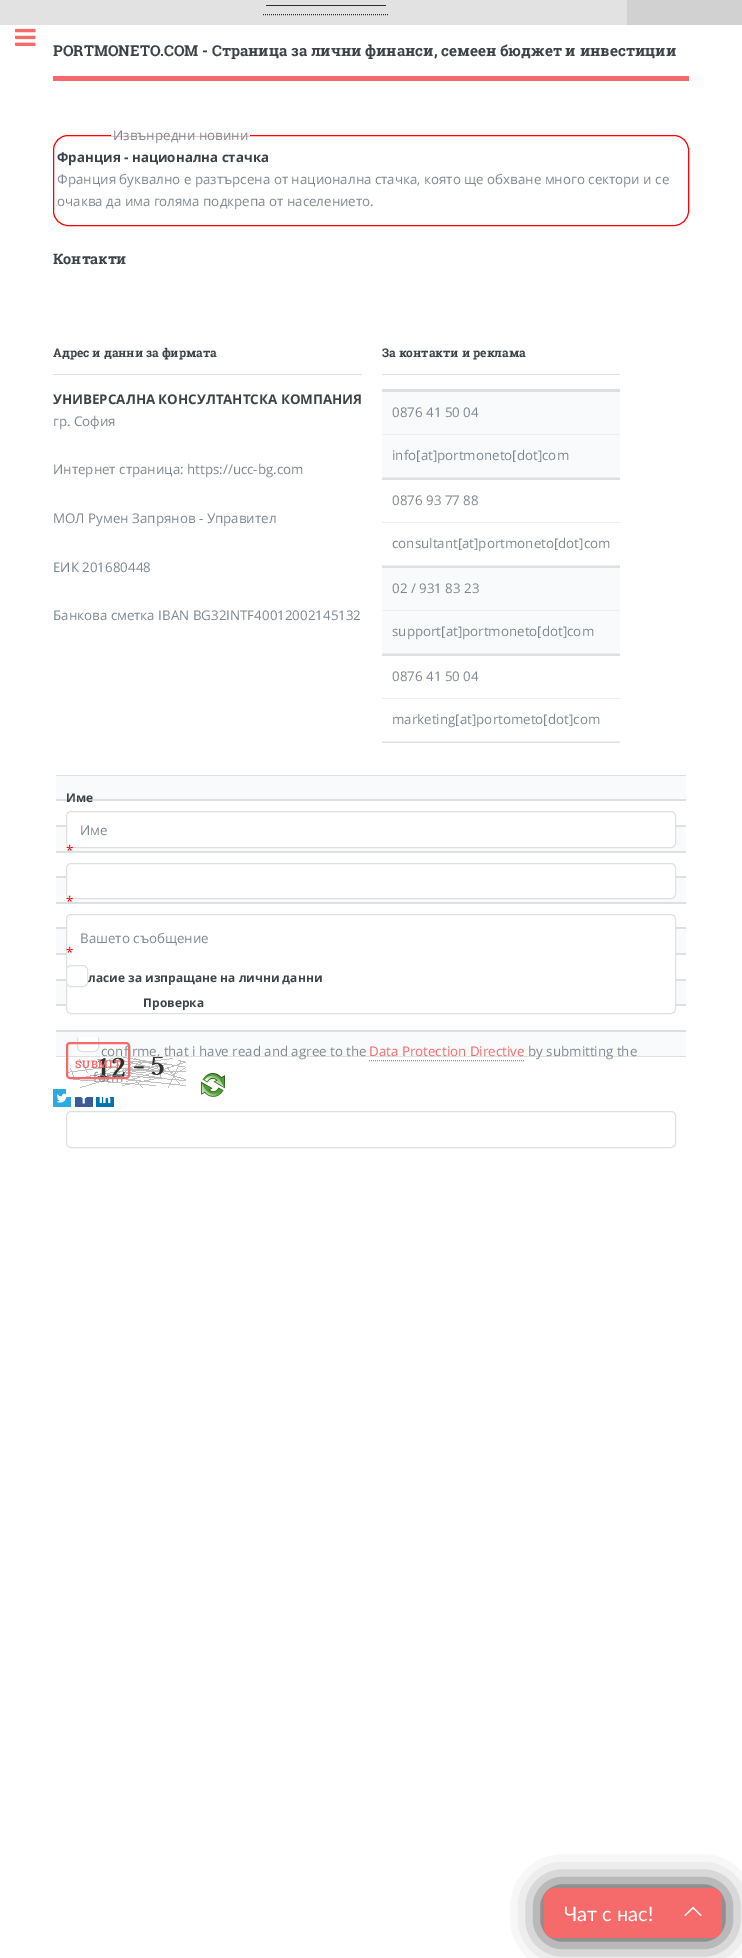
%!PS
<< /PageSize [742 1958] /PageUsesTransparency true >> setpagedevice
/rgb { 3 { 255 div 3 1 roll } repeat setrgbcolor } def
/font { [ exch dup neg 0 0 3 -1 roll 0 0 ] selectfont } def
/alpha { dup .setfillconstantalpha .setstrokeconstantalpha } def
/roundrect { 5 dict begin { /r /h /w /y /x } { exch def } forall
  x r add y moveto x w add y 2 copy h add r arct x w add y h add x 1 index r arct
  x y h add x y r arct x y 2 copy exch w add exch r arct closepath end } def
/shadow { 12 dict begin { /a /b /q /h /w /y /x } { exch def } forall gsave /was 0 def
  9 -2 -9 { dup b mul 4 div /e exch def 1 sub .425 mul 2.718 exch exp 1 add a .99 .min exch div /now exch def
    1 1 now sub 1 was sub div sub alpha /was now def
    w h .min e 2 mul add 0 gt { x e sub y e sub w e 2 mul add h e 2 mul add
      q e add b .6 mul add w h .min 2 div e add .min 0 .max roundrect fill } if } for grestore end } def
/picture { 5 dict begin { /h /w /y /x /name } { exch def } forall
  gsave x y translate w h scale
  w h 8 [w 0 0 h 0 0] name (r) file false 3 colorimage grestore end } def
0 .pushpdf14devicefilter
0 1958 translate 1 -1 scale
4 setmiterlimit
255 255 255 rgb
0 0 742 1958 rectfill
226 226 226 rgb
0 0 627 25 rectfill
45 45 45 rgb
[1 1] 0 setdash
263 14.5 moveto 389 14.5 lineto stroke
266 5 120 1 rectfill
209 209 209 rgb
627 0 115 25 rectfill
(img/1.rgb) 15 28 21 18 picture
245 106 106 rgb
53 76 636 5 rectfill
255 0 0 rgb
[] 0 setdash
53.5 135.5 635 90 14.5 roundrect stroke
[
  [111 135 139 1 255 255 255]
  [53 374 309 1 221 225 227]
  [382 374 238 1 221 225 227]
  [382 389 238 2 221 225 227]
  [382 392 238 85 249 250 251]
  [382 391 238 1 220 224 226]
  [382 478 238 1 220 224 226]
  [382 434 238 1 238 238 238]
  [382 477 238 1 238 238 238]
  [382 479 238 1 221 225 227]
  [382 566 238 1 221 225 227]
  [382 522 238 1 238 238 238]
  [382 565 238 1 238 238 238]
  [382 568 238 85 249 250 251]
  [382 567 238 1 220 224 226]
  [382 654 238 1 220 224 226]
  [382 610 238 1 238 238 238]
  [382 653 238 1 238 238 238]
  [382 655 238 1 221 225 227]
  [382 742 238 1 221 225 227]
  [382 698 238 1 238 238 238]
  [382 741 238 1 238 238 238]
  [56 776 630 23 249 250 251]
  [56 775 630 1 220 224 226]
  [56 799 630 1 220 224 226]
  [56 800 630 1 221 225 227]
  [56 825 630 1 221 225 227]
  [56 827 630 24 249 250 251]
  [56 826 630 1 220 224 226]
] { aload pop rgb rectfill } forall
255 255 255 rgb
66 811 610 37 5 roundrect fill
0.75 alpha
210 215 217 rgb
66.5 811.5 609 36 4.5 roundrect stroke
1 alpha
[
  [56 851 630 1 220 224 226]
  [56 852 630 1 221 225 227]
  [56 876 630 1 221 225 227]
  [56 878 630 24 249 250 251]
  [56 877 630 1 220 224 226]
] { aload pop rgb rectfill } forall
255 255 255 rgb
66 863 610 36 5 roundrect fill
0.75 alpha
210 215 217 rgb
66.5 863.5 609 35 4.5 roundrect stroke
1 alpha
[
  [56 902 630 1 220 224 226]
  [56 903 630 1 221 225 227]
  [56 927 630 1 221 225 227]
  [56 929 630 24 249 250 251]
  [56 928 630 1 220 224 226]
  [56 953 630 1 220 224 226]
  [56 954 630 1 221 225 227]
  [56 979 630 1 221 225 227]
  [56 981 630 23 249 250 251]
  [56 980 630 1 220 224 226]
  [56 1004 630 1 220 224 226]
  [56 1005 630 1 221 225 227]
] { aload pop rgb rectfill } forall
255 255 255 rgb
66.5 914.5 609 99 4.5 roundrect gsave fill grestore
221 225 227 rgb
stroke
(img/4.rgb) 53 1089 18 18 picture
(img/2.rgb) 66 1057 120 40 picture
(img/3.rgb) 201 1073 24 24 picture
66.5 1111.5 609 36 4.5 roundrect stroke
56 1030 630 1 rectfill
249 250 251 rgb
56 1032 630 24 rectfill
255 255 255 rgb
77 1037 moveto 99 1037 lineto 99 1047 lineto 99 1050 97 1052 94 1052 curveto 82 1052 lineto 79 1052 77 1050 77 1047 curveto closepath fill
220 224 226 rgb
56 1031 630 1 rectfill
gsave
66 1037 610 74 rectclip
0.75 alpha
210 215 217 rgb
77.5 1030.5 21 21 4.5 roundrect stroke
grestore
245 106 106 rgb
[1 1] 0 setdash
369 1060.5 moveto 524 1060.5 lineto stroke
220 224 226 rgb
56 1056 630 1 rectfill
(img/5.rgb) 75 1097 18 10 picture
(img/6.rgb) 96 1097 18 10 picture
0 0 0 rgb
544 1888 178 50 10 15 0.5 shadow
544 1888 178 50 10 15 0.5 shadow
245 106 106 rgb
544 1888 178 50 10 roundrect fill
(img/7.rgb) 684 1907 18 9 picture
/RobotoSlab-Bold 15 font
61 68 73 rgb
53 56 moveto (PORTMONETO.COM - Страница за лични финанси, семеен бюджет и инвестиции) show
/OpenSans-Regular 13.35 font
127 136 143 rgb
113 140 moveto (Извънредни новини) show
/OpenSans-Bold 13.35 font
61 68 73 rgb
57 162 moveto (Франция - национална стачка) show
/OpenSans-Regular 13.35 font
127 136 143 rgb
57 184 moveto (Франция буквално е разтърсена от национална стачка, която ще обхване много сектори и се) show
57 206 moveto (очаква да има голяма подкрепа от населението.) show
/RobotoSlab-Bold 14.5 font
61 68 73 rgb
53 264 moveto (Контакти) show
/RobotoSlab-Bold 12 font
53 357 moveto (Адрес и данни за фирмата) show
/OpenSans-Bold 13.35 font
53 404 moveto (УНИВЕРСАЛНА КОНСУЛТАНТСКА КОМПАНИЯ) show
/OpenSans-Regular 13.35 font
127 136 143 rgb
[
  [(гр. София) 53 426]
  [(Интернет страница: https://ucc-bg.com) 53 474]
  [(МОЛ Румен Запрянов - Управител) 53 523]
  [(ЕИК 201680448) 53 572]
  [(Банкова сметка IBAN BG32INTF40012002145132) 53 620]
] { aload pop moveto show } forall
/RobotoSlab-Bold 12 font
61 68 73 rgb
382 357 moveto (За контакти и реклама) show
/OpenSans-Regular 13.35 font
127 136 143 rgb
[
  [(0876 41 50 04) 392 417]
  [(info[at]portmoneto[dot]com) 392 460]
  [(0876 93 77 88) 392 505]
  [(consultant[at]portmoneto[dot]com) 392 548]
  [(02 / 931 83 23) 392 593]
  [(support[at]portmoneto[dot]com) 392 636]
  [(0876 41 50 04) 392 681]
  [(marketing[at]portometo[dot]com) 392 724]
] { aload pop moveto show } forall
/OpenSans-Bold 12 font
61 68 73 rgb
66 802 moveto (Име) show
/OpenSans-Regular 13.35 font
127 136 143 rgb
80 835 moveto (Име) show
255 0 0 rgb
66 855 moveto (*) show
66 906 moveto (*) show
127 136 143 rgb
80 943 moveto (Вашето съобщение) show
255 0 0 rgb
66 957 moveto (*) show
/OpenSans-Bold 12 font
61 68 73 rgb
88 982 moveto (ласие за изпращане на лични данни) show
255 255 255 rgb
66 965 22 22 5 roundrect fill
0.75 alpha
210 215 217 rgb
[] 0 setdash
66.5 965.5 21 21 4.5 roundrect stroke
1 alpha
61 68 73 rgb
143 1007 moveto (Проверка) show
/OpenSans-Regular 13.35 font
127 136 143 rgb
101 1056 moveto (confirme, that i have read and agree to the) show
245 106 106 rgb
369 1056 moveto (Data Protection Directive) show
127 136 143 rgb
528 1056 moveto (by submitting the) show
93 1082 moveto (form) show
245 106 106 rgb
2 setlinewidth
67 1043 62 35 3 roundrect stroke
/RobotoSlab-Bold 10.5 font
75 1068 moveto 0.75 0 (SUBMIT) ashow
/Lato-Regular 20 font
255 255 255 rgb
564 1921 moveto (Чат с нас!) show
.poppdf14devicefilter showpage
